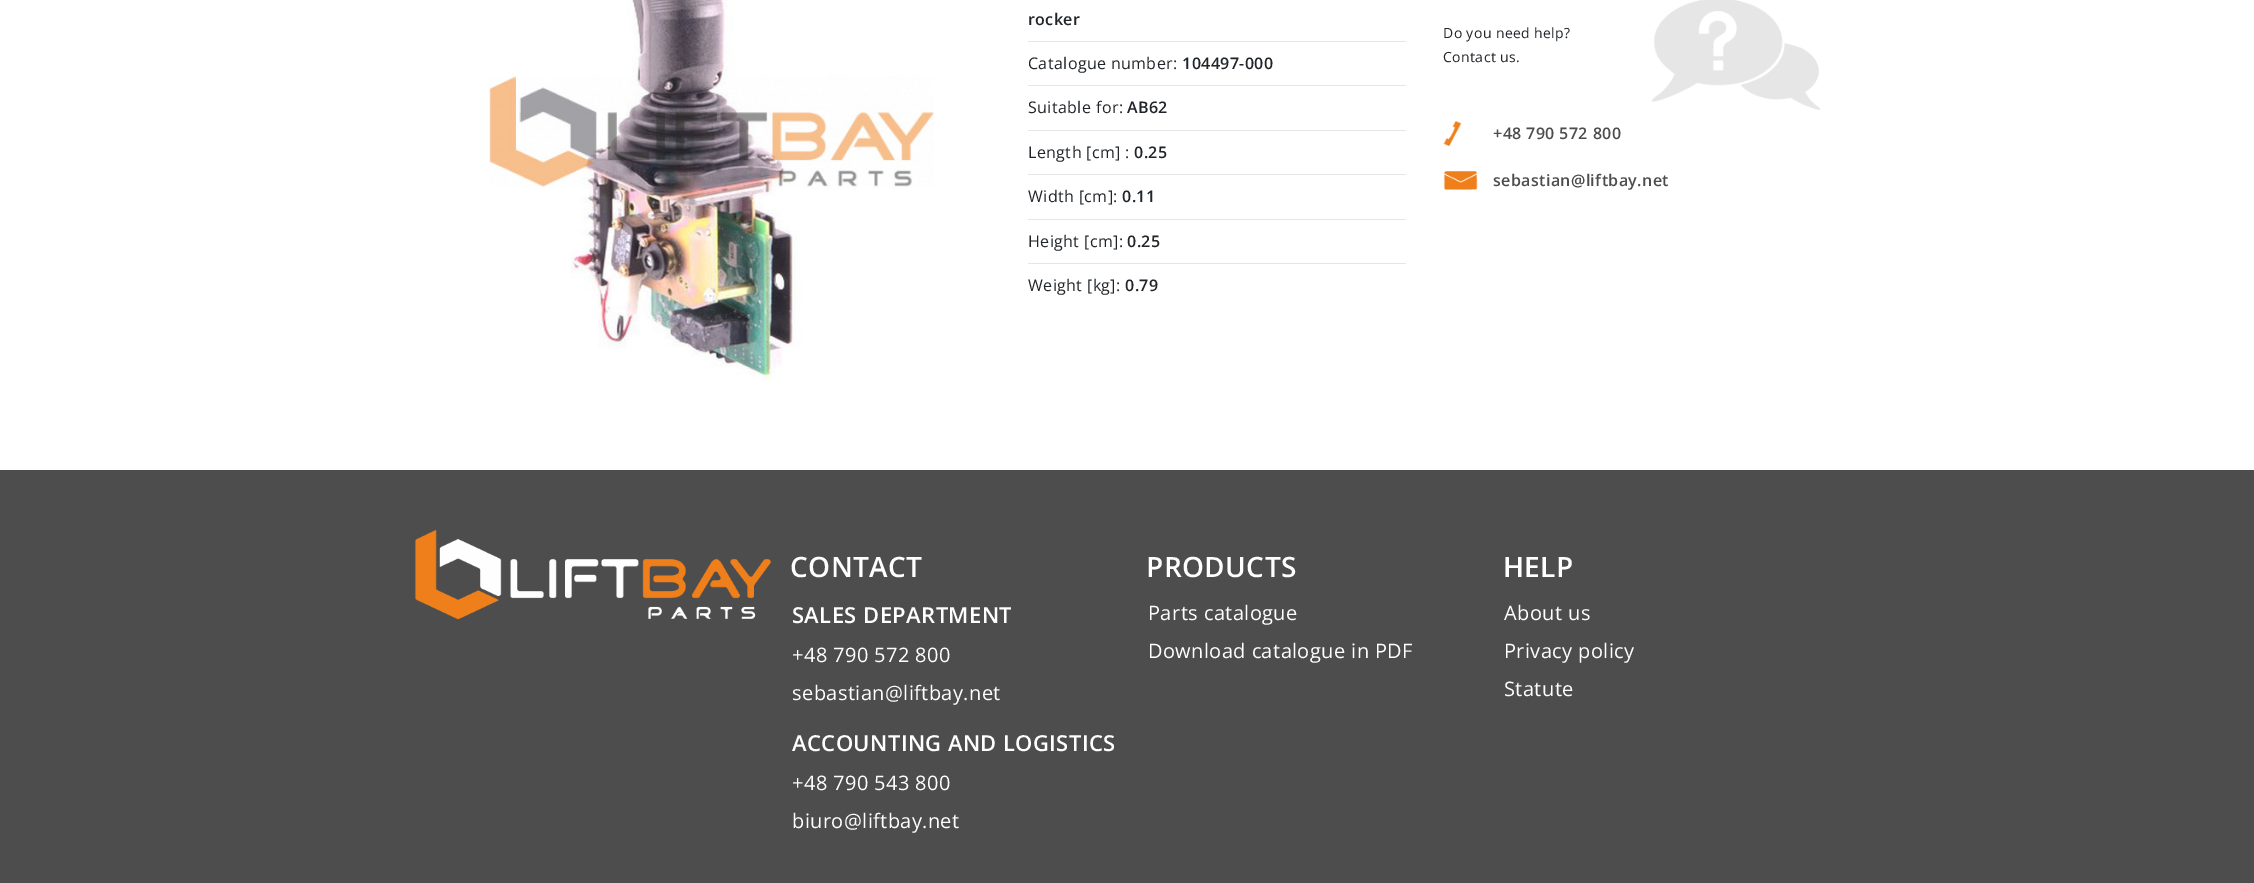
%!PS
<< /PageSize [2254 883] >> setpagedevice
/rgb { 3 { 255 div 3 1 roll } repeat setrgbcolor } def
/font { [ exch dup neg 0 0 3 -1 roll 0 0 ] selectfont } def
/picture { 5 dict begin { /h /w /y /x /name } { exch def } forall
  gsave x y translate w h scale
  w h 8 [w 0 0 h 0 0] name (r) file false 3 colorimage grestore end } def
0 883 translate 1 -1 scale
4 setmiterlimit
255 255 255 rgb
0 0 2254 883 rectfill
(img/1.rgb) 489 0 445 381 picture
[
  [1028 41 378 1 230 230 230]
  [1028 85 378 1 230 230 230]
  [1028 130 378 1 230 230 230]
  [1028 174 378 1 230 230 230]
  [1028 219 378 1 230 230 230]
  [1028 263 378 1 230 230 230]
] { aload pop rgb rectfill } forall
(img/2.rgb) 1651 0 170 110 picture
(img/3.rgb) 1443 121 19 25 picture
(img/4.rgb) 1443 171 35 19 picture
77 77 77 rgb
0 470 2254 413 rectfill
(img/5.rgb) 415 529 357 91 picture
/OpenSans-SemiBold 16 font
33 37 41 rgb
1028 25 moveto 0.4 0 (rocker) ashow
/OpenSans-Regular 16 font
1028 69 moveto 0.4 0 (Catalogue number:) ashow
/OpenSans-SemiBold 16 font
1182 69 moveto 0.4 0 (104497-000) ashow
/OpenSans-Regular 16 font
1028 113 moveto 0.4 0 (Suitable for:) ashow
/OpenSans-SemiBold 16 font
1127 113 moveto 0.4 0 (AB62) ashow
/OpenSans-Regular 16 font
1028 158 moveto 0.4 0 (Length [cm] :) ashow
/OpenSans-SemiBold 16 font
1134 158 moveto 0.4 0 (0.25) ashow
/OpenSans-Regular 16 font
1028 202 moveto 0.4 0 (Width [cm]:) ashow
/OpenSans-SemiBold 16 font
1122 202 moveto 0.4 0 (0.11) ashow
/OpenSans-Regular 16 font
1028 247 moveto 0.4 0 (Height [cm]:) ashow
/OpenSans-SemiBold 16 font
1127 247 moveto 0.4 0 (0.25) ashow
/OpenSans-Regular 16 font
1028 291 moveto 0.4 0 (Weight [kg]:) ashow
/OpenSans-SemiBold 16 font
1125 291 moveto 0.4 0 (0.79) ashow
/OpenSans-Regular 14 font
1443 38 moveto 0.4 0 (Do you need help?) ashow
1443 62 moveto 0.4 0 (Contact us.) ashow
/OpenSans-SemiBold 16 font
77 77 77 rgb
1493 139 moveto 0.4 0 (+48 790 572 800) ashow
1493 186 moveto 0.4 0 (sebastian@liftbay.net) ashow
/OpenSans-SemiBold 28 font
255 255 255 rgb
790 577 moveto 0.4 0 (CONTACT) ashow
/OpenSans-SemiBold 22 font
792 623 moveto 0.4 0 (SALES DEPARTMENT) ashow
/OpenSans-Regular 20 font
792 662 moveto 0.4 0 (+48 790 572 800) ashow
792 700 moveto 0.4 0 (sebastian@liftbay.net) ashow
/OpenSans-SemiBold 22 font
792 751 moveto 0.4 0 (ACCOUNTING AND LOGISTICS) ashow
/OpenSans-Regular 20 font
792 790 moveto 0.4 0 (+48 790 543 800) ashow
792 828 moveto 0.4 0 (biuro@liftbay.net) ashow
/OpenSans-SemiBold 28 font
1146 577 moveto 0.4 0 (PRODUCTS) ashow
/OpenSans-Regular 20 font
1148 620 moveto 0.4 0 (Parts catalogue) ashow
1148 658 moveto 0.4 0 (Download catalogue in PDF) ashow
/OpenSans-SemiBold 28 font
1503 577 moveto 0.4 0 (HELP) ashow
/OpenSans-Regular 20 font
1504 620 moveto 0.4 0 (About us) ashow
1504 658 moveto 0.4 0 (Privacy policy) ashow
1504 696 moveto 0.4 0 (Statute) ashow
showpage
